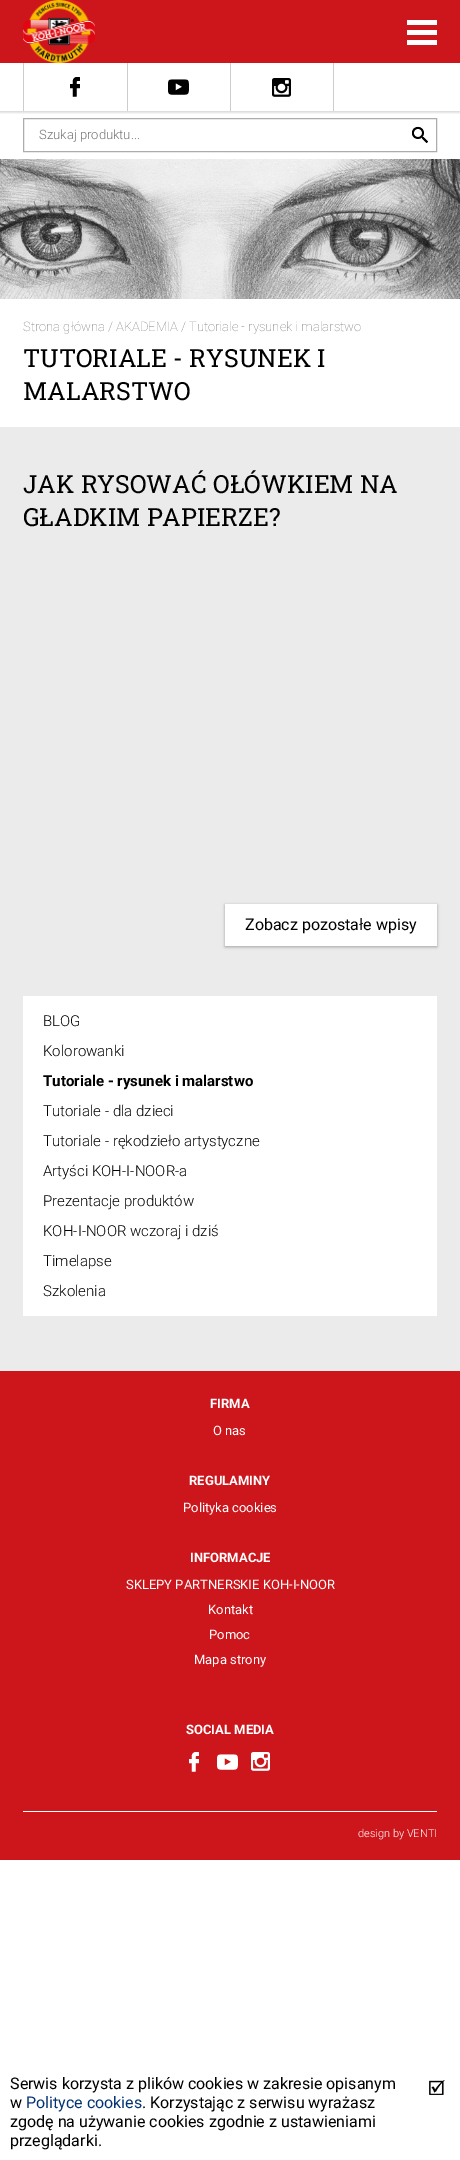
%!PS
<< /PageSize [460 2160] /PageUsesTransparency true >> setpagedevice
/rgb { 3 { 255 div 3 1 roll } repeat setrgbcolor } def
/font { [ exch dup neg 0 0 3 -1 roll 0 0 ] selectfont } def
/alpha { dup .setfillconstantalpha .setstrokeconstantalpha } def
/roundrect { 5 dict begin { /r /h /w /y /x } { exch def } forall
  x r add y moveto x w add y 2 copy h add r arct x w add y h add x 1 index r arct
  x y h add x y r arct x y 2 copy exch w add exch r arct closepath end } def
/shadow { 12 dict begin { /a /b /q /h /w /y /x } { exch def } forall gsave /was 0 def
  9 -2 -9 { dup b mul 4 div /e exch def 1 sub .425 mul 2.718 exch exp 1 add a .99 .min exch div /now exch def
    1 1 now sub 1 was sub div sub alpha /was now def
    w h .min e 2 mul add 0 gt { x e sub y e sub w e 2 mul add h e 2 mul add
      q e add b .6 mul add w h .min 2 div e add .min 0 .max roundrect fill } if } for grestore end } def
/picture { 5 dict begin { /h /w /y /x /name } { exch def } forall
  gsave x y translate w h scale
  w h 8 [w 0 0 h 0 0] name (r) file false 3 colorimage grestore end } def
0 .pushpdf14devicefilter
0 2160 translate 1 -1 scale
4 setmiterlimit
255 255 255 rgb
0 0 460 2160 rectfill
gsave
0 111 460 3 rectclip
0 0 0 rgb
0 64 460 48 0 1.5 0.2 shadow
grestore
205 21 28 rgb
0 0 460 63 rectfill
(img/1.rgb) 23 0 72 63 picture
[
  [407 20 30 5 255 255 255]
  [407 30 30 5 255 255 255]
  [407 40 30 5 255 255 255]
  [23 63 1 48 205 205 205]
] { aload pop rgb rectfill } forall
(img/2.rgb) 70 77 10 20 picture
127 63 1 48 rectfill
(img/3.rgb) 168 79 21 16 picture
333 63 1 48 rectfill
230 63 1 48 rectfill
(img/4.rgb) 272 78 19 19 picture
172 172 172 rgb
23.5 118.5 413 33 rectstroke
(img/5.rgb) 412 126 16 17 picture
(img/6.rgb) 0 159 460 140 picture
235 235 235 rgb
0 427 460 944 rectfill
0 0 0 rgb
225 905 212 42 0 1.5 0.3 shadow
[
  [225 904 212 42 255 255 255]
  [23 996 414 320 255 255 255]
  [0 1371 460 489 205 21 28]
] { aload pop rgb rectfill } forall
(img/7.rgb) 189 1752 10 20 picture
(img/8.rgb) 217 1754 21 16 picture
(img/9.rgb) 251 1752 19 19 picture
255 255 255 rgb
23 1811 414 1 rectfill
(img/10.rgb) 429 2080 16 15 picture
/Roboto-Light 13 font
117 117 117 rgb
39 139 moveto (Szukaj produktu...) show
/Roboto-Thin 13 font
131 128 128 rgb
23 331 moveto (Strona główna / AKADEMIA / Tutoriale - rysunek i malarstwo) show
/RobotoSlab-Regular 25 font
0 0 0 rgb
[
  [(TUTORIALE - RYSUNEK I) 23 367]
  [(MALARSTWO) 23 400]
  [(JAK RYSOWAĆ OŁÓWKIEM NA) 23 493]
  [(GŁADKIM PAPIERZE?) 23 526]
] { aload pop moveto show } forall
/Roboto-Regular 16 font
245 930 moveto (Zobacz pozostałe wpisy) show
/Roboto-Light 15 font
43 1026 moveto (BLOG) show
43 1056 moveto (Kolorowanki) show
/Roboto-Bold 15 font
43 1086 moveto (Tutoriale - rysunek i malarstwo) show
/Roboto-Light 15 font
[
  [(Tutoriale - dla dzieci) 43 1116]
  [(Tutoriale - rękodzieło artystyczne) 43 1146]
  [(Artyści KOH-I-NOOR-a) 43 1176]
  [(Prezentacje produktów) 43 1206]
  [(KOH-I-NOOR wczoraj i dziś) 43 1236]
  [(Timelapse) 43 1266]
  [(Szkolenia) 43 1296]
] { aload pop moveto show } forall
/Roboto-Bold 13 font
255 255 255 rgb
210 1408 moveto (FIRMA) show
/Roboto-Regular 13 font
213 1435 moveto (O nas) show
/Roboto-Bold 13 font
189 1485 moveto (REGULAMINY) show
/Roboto-Regular 13 font
183 1512 moveto (Polityka cookies) show
/Roboto-Bold 13 font
190 1562 moveto (INFORMACJE) show
/Roboto-Regular 13 font
[
  [(SKLEPY PARTNERSKIE KOH-I-NOOR) 126 1589]
  [(Kontakt) 208 1614]
  [(Pomoc) 209 1639]
  [(Mapa strony) 194 1664]
] { aload pop moveto show } forall
/Roboto-Bold 13 font
186 1734 moveto (SOCIAL MEDIA) show
/Roboto-Light 11 font
358 1837 moveto (design by VENTI) show
/Roboto-Regular 16 font
0 0 0 rgb
10 2089 moveto (Serwis korzysta z plików cookies w zakresie opisanym) show
10 2108 moveto (w) show
3 51 115 rgb
26 2108 moveto (Polityce cookies) show
0 0 0 rgb
[
  [(. Korzystając z serwisu wyrażasz) 142 2108]
  [(zgodę na używanie cookies zgodnie z ustawieniami) 10 2127]
  [(przeglądarki.) 10 2146]
] { aload pop moveto show } forall
.poppdf14devicefilter showpage
